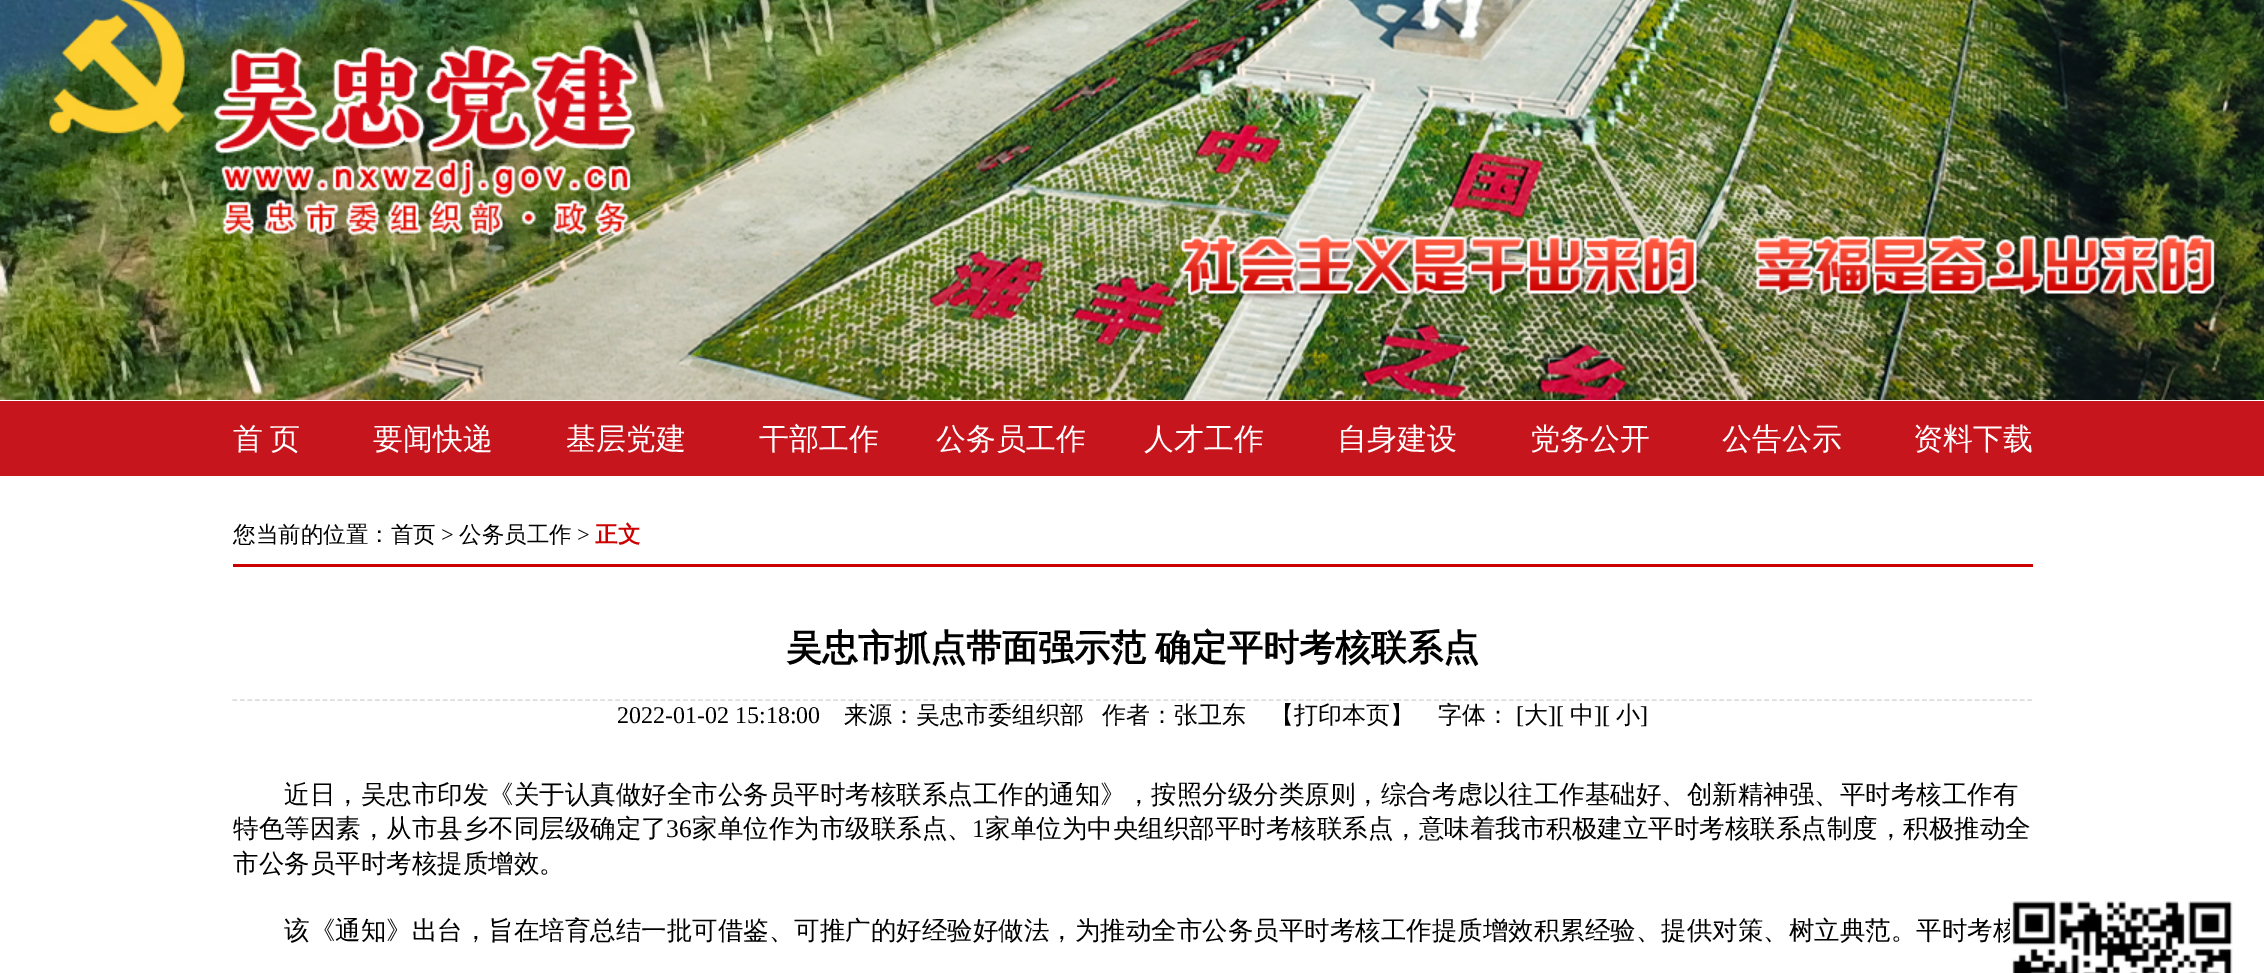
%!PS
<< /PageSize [2264 973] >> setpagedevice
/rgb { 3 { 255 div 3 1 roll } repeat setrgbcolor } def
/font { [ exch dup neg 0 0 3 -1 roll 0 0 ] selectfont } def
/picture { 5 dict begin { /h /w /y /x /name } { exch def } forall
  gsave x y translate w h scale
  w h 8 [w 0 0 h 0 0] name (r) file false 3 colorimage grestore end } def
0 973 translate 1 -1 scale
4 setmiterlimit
255 255 255 rgb
0 0 2264 973 rectfill
(img/1.rgb) 0 0 2264 400 picture
199 21 30 rgb
0 401 2264 75 rectfill
204 0 0 rgb
233 564 1800 3 rectfill
221 221 221 rgb
1.5 setlinewidth
[4.5 3.01] 0 setdash
232.5 700 moveto 2032.5 700 lineto stroke
/WenQuanYiZenHei-Medium 30 font
255 255 255 rgb
[
  [(首) 233 449]
  [(页) 270 449]
  [(要闻快递) 373 449]
  [(基层党建) 566 449]
  [(干部工作) 759 449]
  [(公务员工作) 936 449]
  [(人才工作) 1144 449]
  [(自身建设) 1337 449]
  [(党务公开) 1530 449]
  [(公告公示) 1722 449]
  [(资料下载) 1913 449]
] { aload pop moveto show } forall
/WenQuanYiZenHei-Medium 22.5 font
0 0 0 rgb
233 542 moveto (您当前的位置：首页) show
/LiberationSerif-Regular 22.5 font
441 542 moveto (>) show
/WenQuanYiZenHei-Medium 22.5 font
459 542 moveto (公务员工作) show
/LiberationSerif-Regular 22.5 font
577 542 moveto (>) show
/WenQuanYiZenHei-Bold 22.5 font
204 0 0 rgb
595 542 moveto (正文) show
/WenQuanYiZenHei-Bold 36 font
0 0 0 rgb
786 660 moveto -2 0 32 (吴忠市抓点带面强示范 确定平时考核联系点) widthshow
/LiberationSerif-Regular 24 font
617 723 moveto (2022-01-02 15:18:00) show
/WenQuanYiZenHei-Medium 24 font
[
  [(来源：吴忠市委组织部) 844 723]
  [(作者：张卫东) 1102 723]
  [(【打印本页】) 1270 723]
  [(字体：) 1438 723]
] { aload pop moveto show } forall
/LiberationSerif-Regular 24 font
1516 723 moveto ([) show
/WenQuanYiZenHei-Medium 24 font
1524 723 moveto (大) show
/LiberationSerif-Regular 24 font
1548 723 moveto (][) show
/WenQuanYiZenHei-Medium 24 font
1570 723 moveto (中) show
/LiberationSerif-Regular 24 font
1594 723 moveto (][) show
/WenQuanYiZenHei-Medium 24 font
1616 723 moveto (小) show
/LiberationSerif-Regular 24 font
1640 723 moveto (]) show
/WenQuanYiZenHei-Medium 25.5 font
284 803 moveto (近日，吴忠市印发《关于认真做好全市公务员平时考核联系点工作的通知》，按照分级分类原则，综合考虑以往工作基础好、创新精神强、平时考核工作有) show
233 837 moveto (特色等因素，从市县乡不同层级确定了) show
/LiberationSerif-Regular 25.5 font
666 837 moveto (36) show
/WenQuanYiZenHei-Medium 25.5 font
692 837 moveto (家单位作为市级联系点、) show
/LiberationSerif-Regular 25.5 font
972 837 moveto (1) show
/WenQuanYiZenHei-Medium 25.5 font
[
  [(家单位为中央组织部平时考核联系点，意味着我市积极建立平时考核联系点制度，积极推动全) 985 837]
  [(市公务员平时考核提质增效。) 233 872]
  [(该《通知》出台，旨在培育总结一批可借鉴、可推广的好经验好做法，为推动全市公务员平时考核工作提质增效积累经验、提供对策、树立典范。平时考核) 284 939]
] { aload pop moveto show } forall
(img/2.rgb) 2010 901 223 72 picture
showpage
